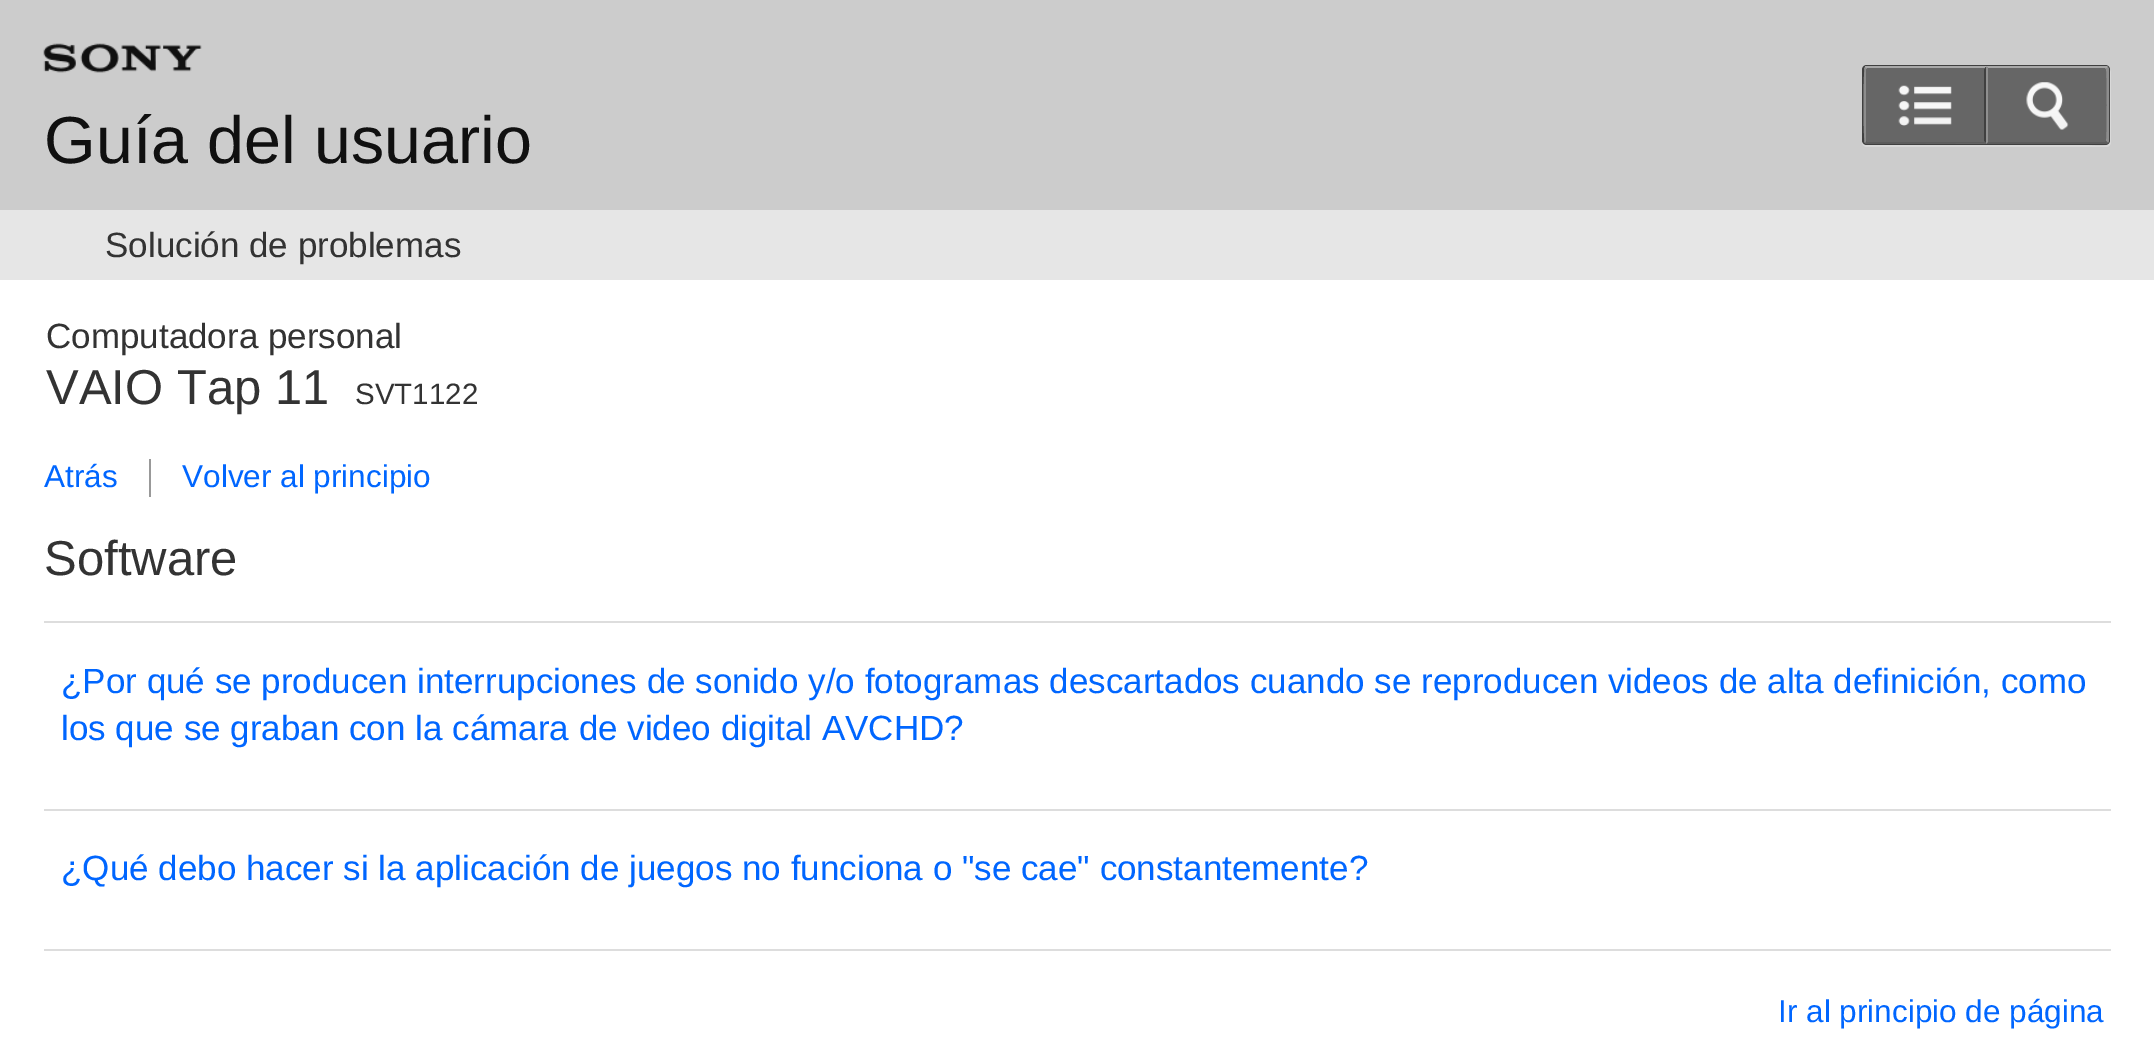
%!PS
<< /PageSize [2154 1064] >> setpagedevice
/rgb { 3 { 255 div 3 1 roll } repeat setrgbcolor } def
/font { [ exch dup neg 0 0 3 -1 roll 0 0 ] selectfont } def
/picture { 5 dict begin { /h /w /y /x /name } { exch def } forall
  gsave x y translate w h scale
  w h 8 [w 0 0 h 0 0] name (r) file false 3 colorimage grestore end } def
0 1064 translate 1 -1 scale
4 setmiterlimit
255 255 255 rgb
0 0 2154 1064 rectfill
204 204 204 rgb
0 0 2154 210 rectfill
(img/1.rgb) 43 43 159 30 picture
217 217 217 rgb
1862 140 moveto 1862 142 lineto 1862 145 1864 147 1867 147 curveto 1986 147 lineto 1986 145 lineto 1867 145 lineto 1864 145 1862 143 1862 140 curveto closepath fill
64 64 64 rgb
1867 65 moveto 1986 65 lineto 1986 145 lineto 1867 145 lineto 1864 145 1862 143 1862 140 curveto 1862 70 lineto 1862 67 1864 65 1867 65 curveto closepath 1867 66 moveto 1986 66 lineto 1986 144 lineto 1867 144 lineto 1865 144 1864 142 1864 140 curveto 1864 70 lineto 1864 68 1865 66 1867 66 curveto closepath eofill
102 102 102 rgb
1868 67 moveto 1986 67 lineto 1986 144 lineto 1868 144 lineto 1866 144 1864 142 1864 140 curveto 1864 71 lineto 1864 69 1866 67 1868 67 curveto closepath fill
168 168 168 rgb
1867 68 moveto 1866 69 lineto 1865 67 lineto 1865 66 lineto 1986 66 lineto 1984 69 lineto 1984 68 lineto closepath fill
64 64 64 rgb
1986 67 moveto 1986 143 lineto 1984 141 lineto 1984 69 lineto closepath fill
92 92 92 rgb
1865 144 moveto 1865 143 lineto 1866 141 lineto 1867 142 lineto 1984 142 lineto 1984 141 lineto 1986 143 lineto closepath fill
141 141 141 rgb
1865 143 moveto 1863 140 1863 70 1865 67 curveto 1866 69 lineto 1866 141 lineto closepath fill
(img/2.rgb) 1898 85 54 41 picture
217 217 217 rgb
1986 67 moveto 1986 147 lineto 2106 147 lineto 2109 147 2111 145 2111 142 curveto 2111 72 lineto 2110 70 lineto 2110 141 lineto 2109 149 2093 145 2085 145 curveto 1986 145 lineto closepath fill
64 64 64 rgb
1986 65 moveto 2105 65 lineto 2108 65 2110 67 2110 70 curveto 2110 140 lineto 2110 143 2108 145 2105 145 curveto 1986 145 lineto closepath 1986 66 moveto 2105 66 lineto 2107 66 2109 68 2109 70 curveto 2109 140 lineto 2109 142 2107 144 2105 144 curveto 1986 144 lineto closepath eofill
102 102 102 rgb
1986 67 moveto 2105 67 lineto 2107 67 2109 69 2109 71 curveto 2109 140 lineto 2109 142 2107 144 2105 144 curveto 1986 144 lineto closepath fill
168 168 168 rgb
1988 68 moveto 1986 66 lineto 2107 66 lineto 2108 67 lineto 2106 69 lineto 2105 68 lineto closepath fill
141 141 141 rgb
2109 141 moveto 2108 143 lineto 2106 141 lineto 2107 140 2107 70 2106 69 curveto 2108 67 lineto 2109 69 lineto closepath fill
92 92 92 rgb
2108 143 moveto 2107 144 lineto 1986 144 lineto 1988 142 lineto 2105 142 lineto 2106 141 lineto closepath fill
143 143 143 rgb
1986 144 moveto 1988 142 lineto 1988 68 lineto 1986 66 lineto closepath fill
(img/3.rgb) 2026 82 43 48 picture
[
  [0 210 2154 70 230 230 230]
  [149 459 2 38 153 153 153]
  [44 621 2067 2 221 221 221]
  [44 809 2067 2 221 221 221]
  [44 949 2067 2 221 221 221]
] { aload pop rgb rectfill } forall
/LiberationSans-Regular 66.5 font
16 16 16 rgb
44 163 moveto (Guía del usuario) show
/LiberationSans-Regular 35 font
51 51 51 rgb
105 257 moveto (Solución de problemas) show
46 348 moveto (Computadora personal) show
/LiberationSans-Regular 49 font
46 404 moveto (VAIO Tap 11) show
/LiberationSans-Regular 29.5 font
355 404 moveto (SVT1122) show
/LiberationSans-Regular 31.5 font
0 102 255 rgb
44 487 moveto (Atrás) show
182 487 moveto (Volver al principio) show
/LiberationSans-Regular 49 font
51 51 51 rgb
44 575 moveto (Software) show
/LiberationSans-Regular 35 font
0 102 255 rgb
[
  [(¿Por qué se producen interrupciones de sonido y/o fotogramas descartados cuando se reproducen videos de alta definición, como) 61 693]
  [(los que se graban con la cámara de video digital AVCHD?) 61 740]
  [(¿Qué debo hacer si la aplicación de juegos no funciona o "se cae" constantemente?) 61 880]
] { aload pop moveto show } forall
/LiberationSans-Regular 31.5 font
1778 1022 moveto (Ir al principio de página) show
showpage
